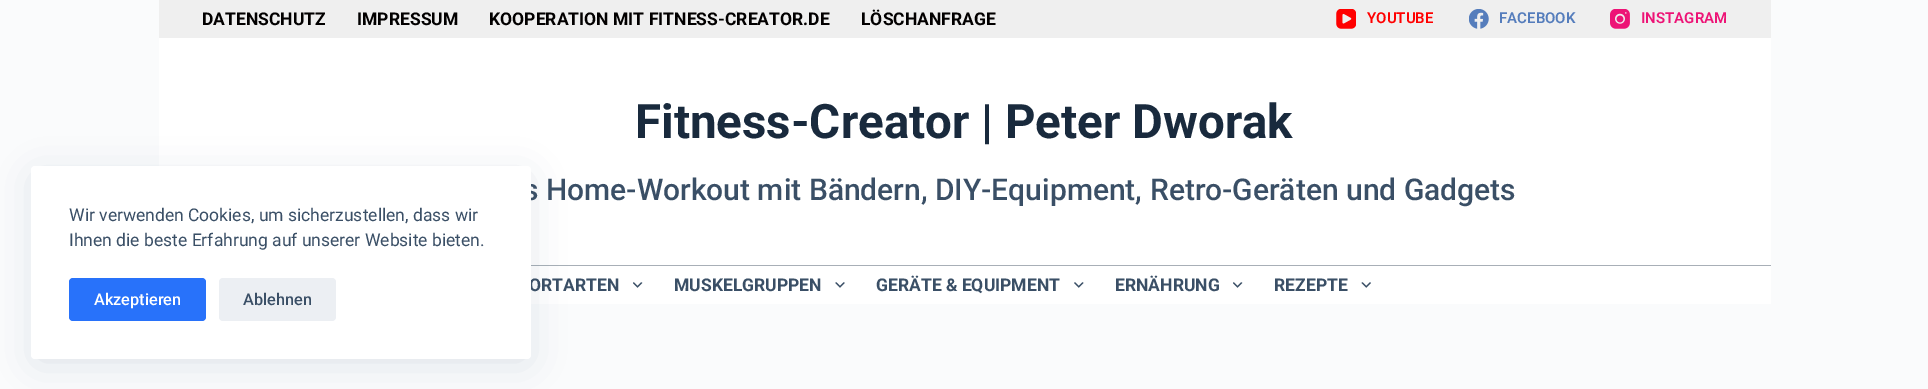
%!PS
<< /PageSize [1928 389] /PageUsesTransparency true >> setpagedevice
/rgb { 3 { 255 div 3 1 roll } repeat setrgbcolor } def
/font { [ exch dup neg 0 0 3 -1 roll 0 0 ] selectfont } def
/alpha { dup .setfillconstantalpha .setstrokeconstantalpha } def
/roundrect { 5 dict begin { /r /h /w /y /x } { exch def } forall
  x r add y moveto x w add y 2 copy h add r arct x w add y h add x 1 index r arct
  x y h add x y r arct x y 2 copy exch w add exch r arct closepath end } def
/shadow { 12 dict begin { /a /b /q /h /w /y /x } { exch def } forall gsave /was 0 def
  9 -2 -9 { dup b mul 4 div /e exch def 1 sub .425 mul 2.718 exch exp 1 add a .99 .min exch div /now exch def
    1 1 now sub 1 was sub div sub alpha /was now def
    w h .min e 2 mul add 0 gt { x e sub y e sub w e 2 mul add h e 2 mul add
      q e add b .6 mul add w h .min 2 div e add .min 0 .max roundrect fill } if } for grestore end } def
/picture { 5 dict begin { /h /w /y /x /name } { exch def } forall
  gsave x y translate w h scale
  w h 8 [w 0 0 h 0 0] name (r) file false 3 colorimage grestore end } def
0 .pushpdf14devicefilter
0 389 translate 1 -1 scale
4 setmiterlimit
250 251 252 rgb
0 0 1928 389 rectfill
239 239 239 rgb
159 0 1612 38 rectfill
(img/1.rgb) 1336 9 20 20 picture
(img/2.rgb) 1469 9 20 20 picture
(img/3.rgb) 1610 9 20 20 picture
[
  [159 38 1612 227 255 255 255]
  [531 265 1240 1 168 175 183]
  [531 266 1240 38 255 255 255]
] { aload pop rgb rectfill } forall
(img/4.rgb) 633 282 10 6 picture
(img/5.rgb) 835 282 10 6 picture
(img/6.rgb) 1074 282 10 6 picture
(img/4.rgb) 1233 282 10 6 picture
(img/7.rgb) 1361 282 10 6 picture
34 56 101 rgb
38 179 487 180 0 19 0.15 shadow
/Roboto-Bold 17.5 font
2 0 0 rgb
[
  [(DATENSCHUTZ) 202 25]
  [(IMPRESSUM) 357 25]
  [(KOOPERATION MIT FITNESS-CREATOR.DE) 489 25]
  [(LÖSCHANFRAGE) 861 25]
] { aload pop moveto show } forall
/Roboto-SemiBold 15 font
255 0 0 rgb
1367 23 moveto (YOUTUBE) show
85 125 188 rgb
1499 23 moveto (FACEBOOK) show
237 19 118 rgb
1641 23 moveto (INSTAGRAM) show
/Roboto-Bold 47.5 font
25 42 61 rgb
635 138 moveto (Fitness-Creator | Peter Dworak) show
/Roboto-Medium 30 font
58 79 102 rgb
523 200 moveto (s Home-Workout mit Bändern, DIY-Equipment, Retro-Geräten und Gadgets) show
/Roboto-Bold 17.5 font
[
  [(ORTARTEN) 529 291]
  [(MUSKELGRUPPEN) 674 291]
  [(GERÄTE & EQUIPMENT) 876 291]
  [(ERNÄHRUNG) 1115 291]
  [(REZEPTE) 1274 291]
] { aload pop moveto show } forall
255 255 255 rgb
31 166 500 193 4 roundrect fill
/Roboto-Regular 17.5 font
58 79 102 rgb
69 221 moveto (Wir verwenden Cookies, um sicherzustellen, dass wir) show
69 246 moveto (Ihnen die beste Erfahrung auf unserer Website bieten.) show
40 114 250 rgb
69 278 137 43 4 roundrect fill
/Roboto-Medium 16.25 font
255 255 255 rgb
94 305 moveto (Akzeptieren) show
236 239 243 rgb
219 278 117 43 4 roundrect fill
58 79 102 rgb
243 305 moveto (Ablehnen) show
.poppdf14devicefilter showpage
